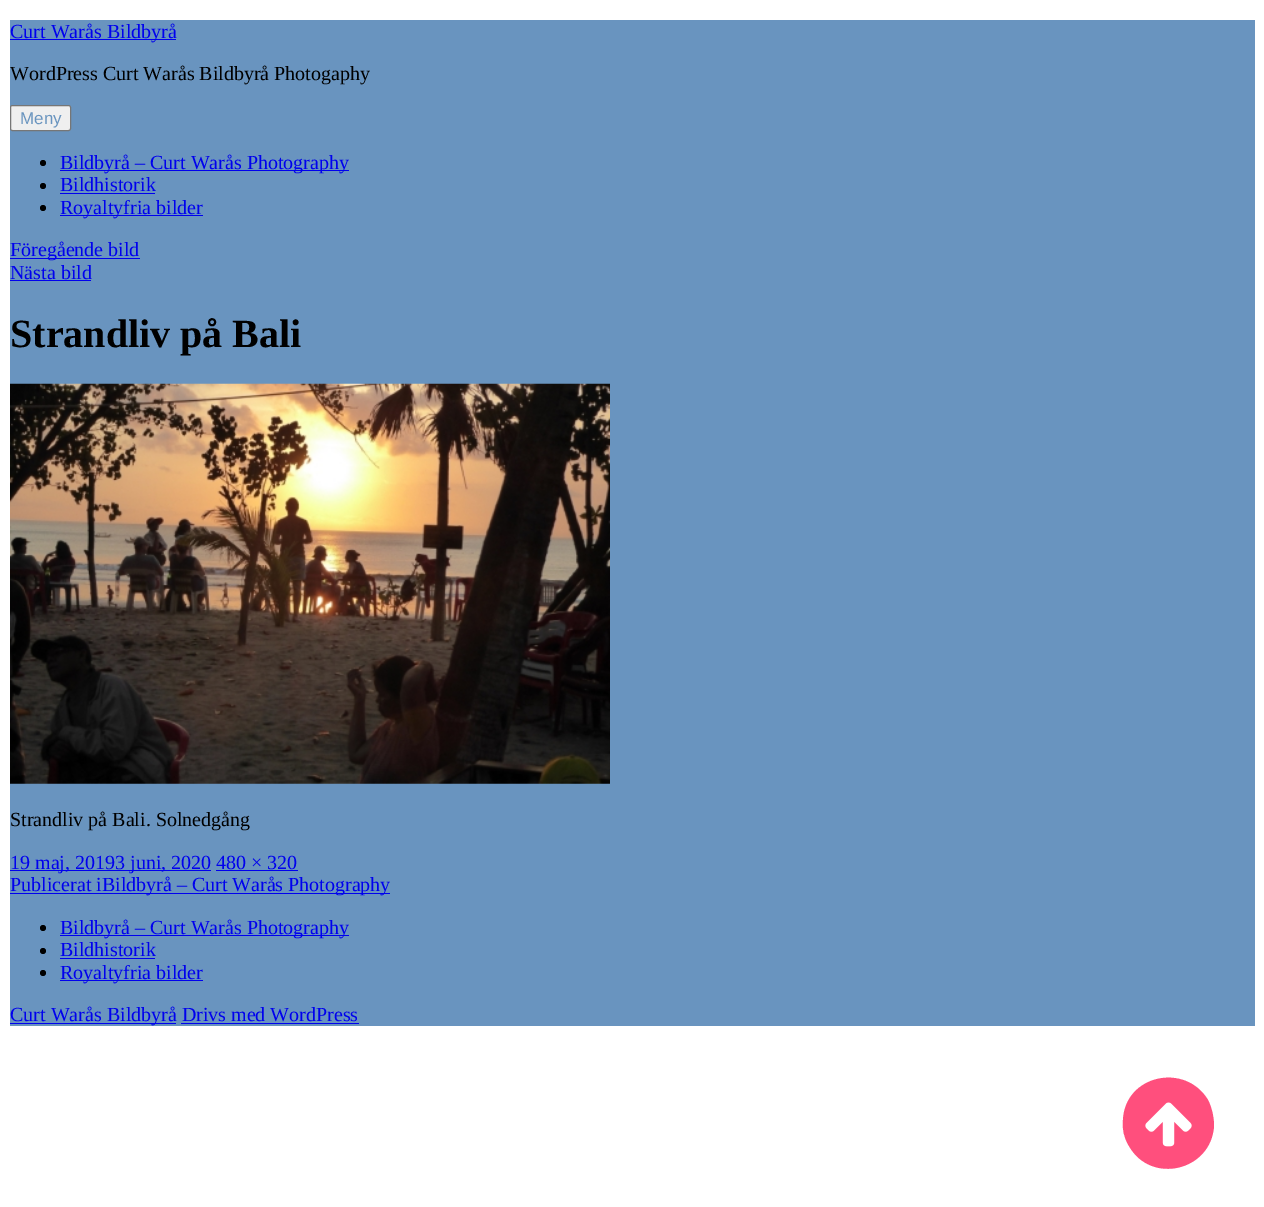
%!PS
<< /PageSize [1264 1207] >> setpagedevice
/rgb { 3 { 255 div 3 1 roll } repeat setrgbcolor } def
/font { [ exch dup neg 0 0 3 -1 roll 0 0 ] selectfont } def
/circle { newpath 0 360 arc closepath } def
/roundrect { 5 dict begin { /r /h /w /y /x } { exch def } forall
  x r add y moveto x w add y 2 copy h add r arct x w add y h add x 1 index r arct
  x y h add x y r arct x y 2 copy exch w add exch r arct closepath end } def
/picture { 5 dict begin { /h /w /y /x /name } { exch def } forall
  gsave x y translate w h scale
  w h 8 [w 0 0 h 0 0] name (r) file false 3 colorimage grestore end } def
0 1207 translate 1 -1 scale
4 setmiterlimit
255 255 255 rgb
0 0 1264 1207 rectfill
105 148 191 rgb
10 20 1245 1006 rectfill
0 0 238 rgb
10 39 166 1 rectfill
239 239 239 rgb
10.5 105.5 60 25 2 roundrect gsave fill grestore
118 118 118 rgb
stroke
0 0 0 rgb
43 163 3 circle fill
0 0 238 rgb
60 170 289 1 rectfill
0 0 0 rgb
43 186 3 circle fill
0 0 238 rgb
60 193 95 1 rectfill
0 0 0 rgb
43 208 3 circle fill
[
  [60 215 143 1 0 0 238]
  [10 258 130 1 0 0 238]
  [10 280 81 1 0 0 238]
] { aload pop rgb rectfill } forall
(img/1.rgb) 10 383 600 401 picture
[
  [10 870 201 1 0 0 238]
  [216 870 82 1 0 0 238]
  [10 893 380 1 0 0 238]
] { aload pop rgb rectfill } forall
0 0 0 rgb
43 928 3 circle fill
0 0 238 rgb
60 935 289 1 rectfill
0 0 0 rgb
43 951 3 circle fill
0 0 238 rgb
60 958 95 1 rectfill
0 0 0 rgb
43 973 3 circle fill
[
  [60 980 143 1 0 0 238]
  [10 1023 166 1 0 0 238]
  [181 1023 178 1 0 0 238]
] { aload pop rgb rectfill } forall
255 79 125 rgb
1208 1100 moveto 1212 1108 1214 1117 1214 1126 curveto 1211 1171 1151 1185 1129 1146 curveto 1124 1138 1122 1129 1123 1120 curveto 1125 1075 1185 1062 1208 1100 curveto closepath fill
(img/2.rgb) 1145 1102 47 45 picture
/LiberationSerif-Regular 20 font
0 0 238 rgb
10 38 moveto (Curt Warås Bildbyrå) show
0 0 0 rgb
10 80 moveto (WordPress Curt Warås Bildbyrå Photogaphy) show
/LiberationSans-Regular 17 font
105 148 191 rgb
20 124 moveto (Meny) show
/LiberationSerif-Regular 20 font
0 0 238 rgb
[
  [(Bildbyrå – Curt Warås Photography) 60 169]
  [(Bildhistorik) 60 191]
  [(Royaltyfria bilder) 60 214]
  [(Föregående bild) 10 256]
  [(Nästa bild) 10 279]
] { aload pop moveto show } forall
/LiberationSerif-Bold 40 font
0 0 0 rgb
10 347 moveto (Strandliv på Bali) show
/LiberationSerif-Regular 20 font
10 826 moveto (Strandliv på Bali. Solnedgång) show
0 0 238 rgb
[
  [(19 maj, 20193 juni, 2020 480 × 320) 10 869]
  [(Publicerat iBildbyrå – Curt Warås Photography) 10 891]
  [(Bildbyrå – Curt Warås Photography) 60 934]
  [(Bildhistorik) 60 956]
  [(Royaltyfria bilder) 60 979]
  [(Curt Warås Bildbyrå Drivs med WordPress) 10 1021]
] { aload pop moveto show } forall
showpage
